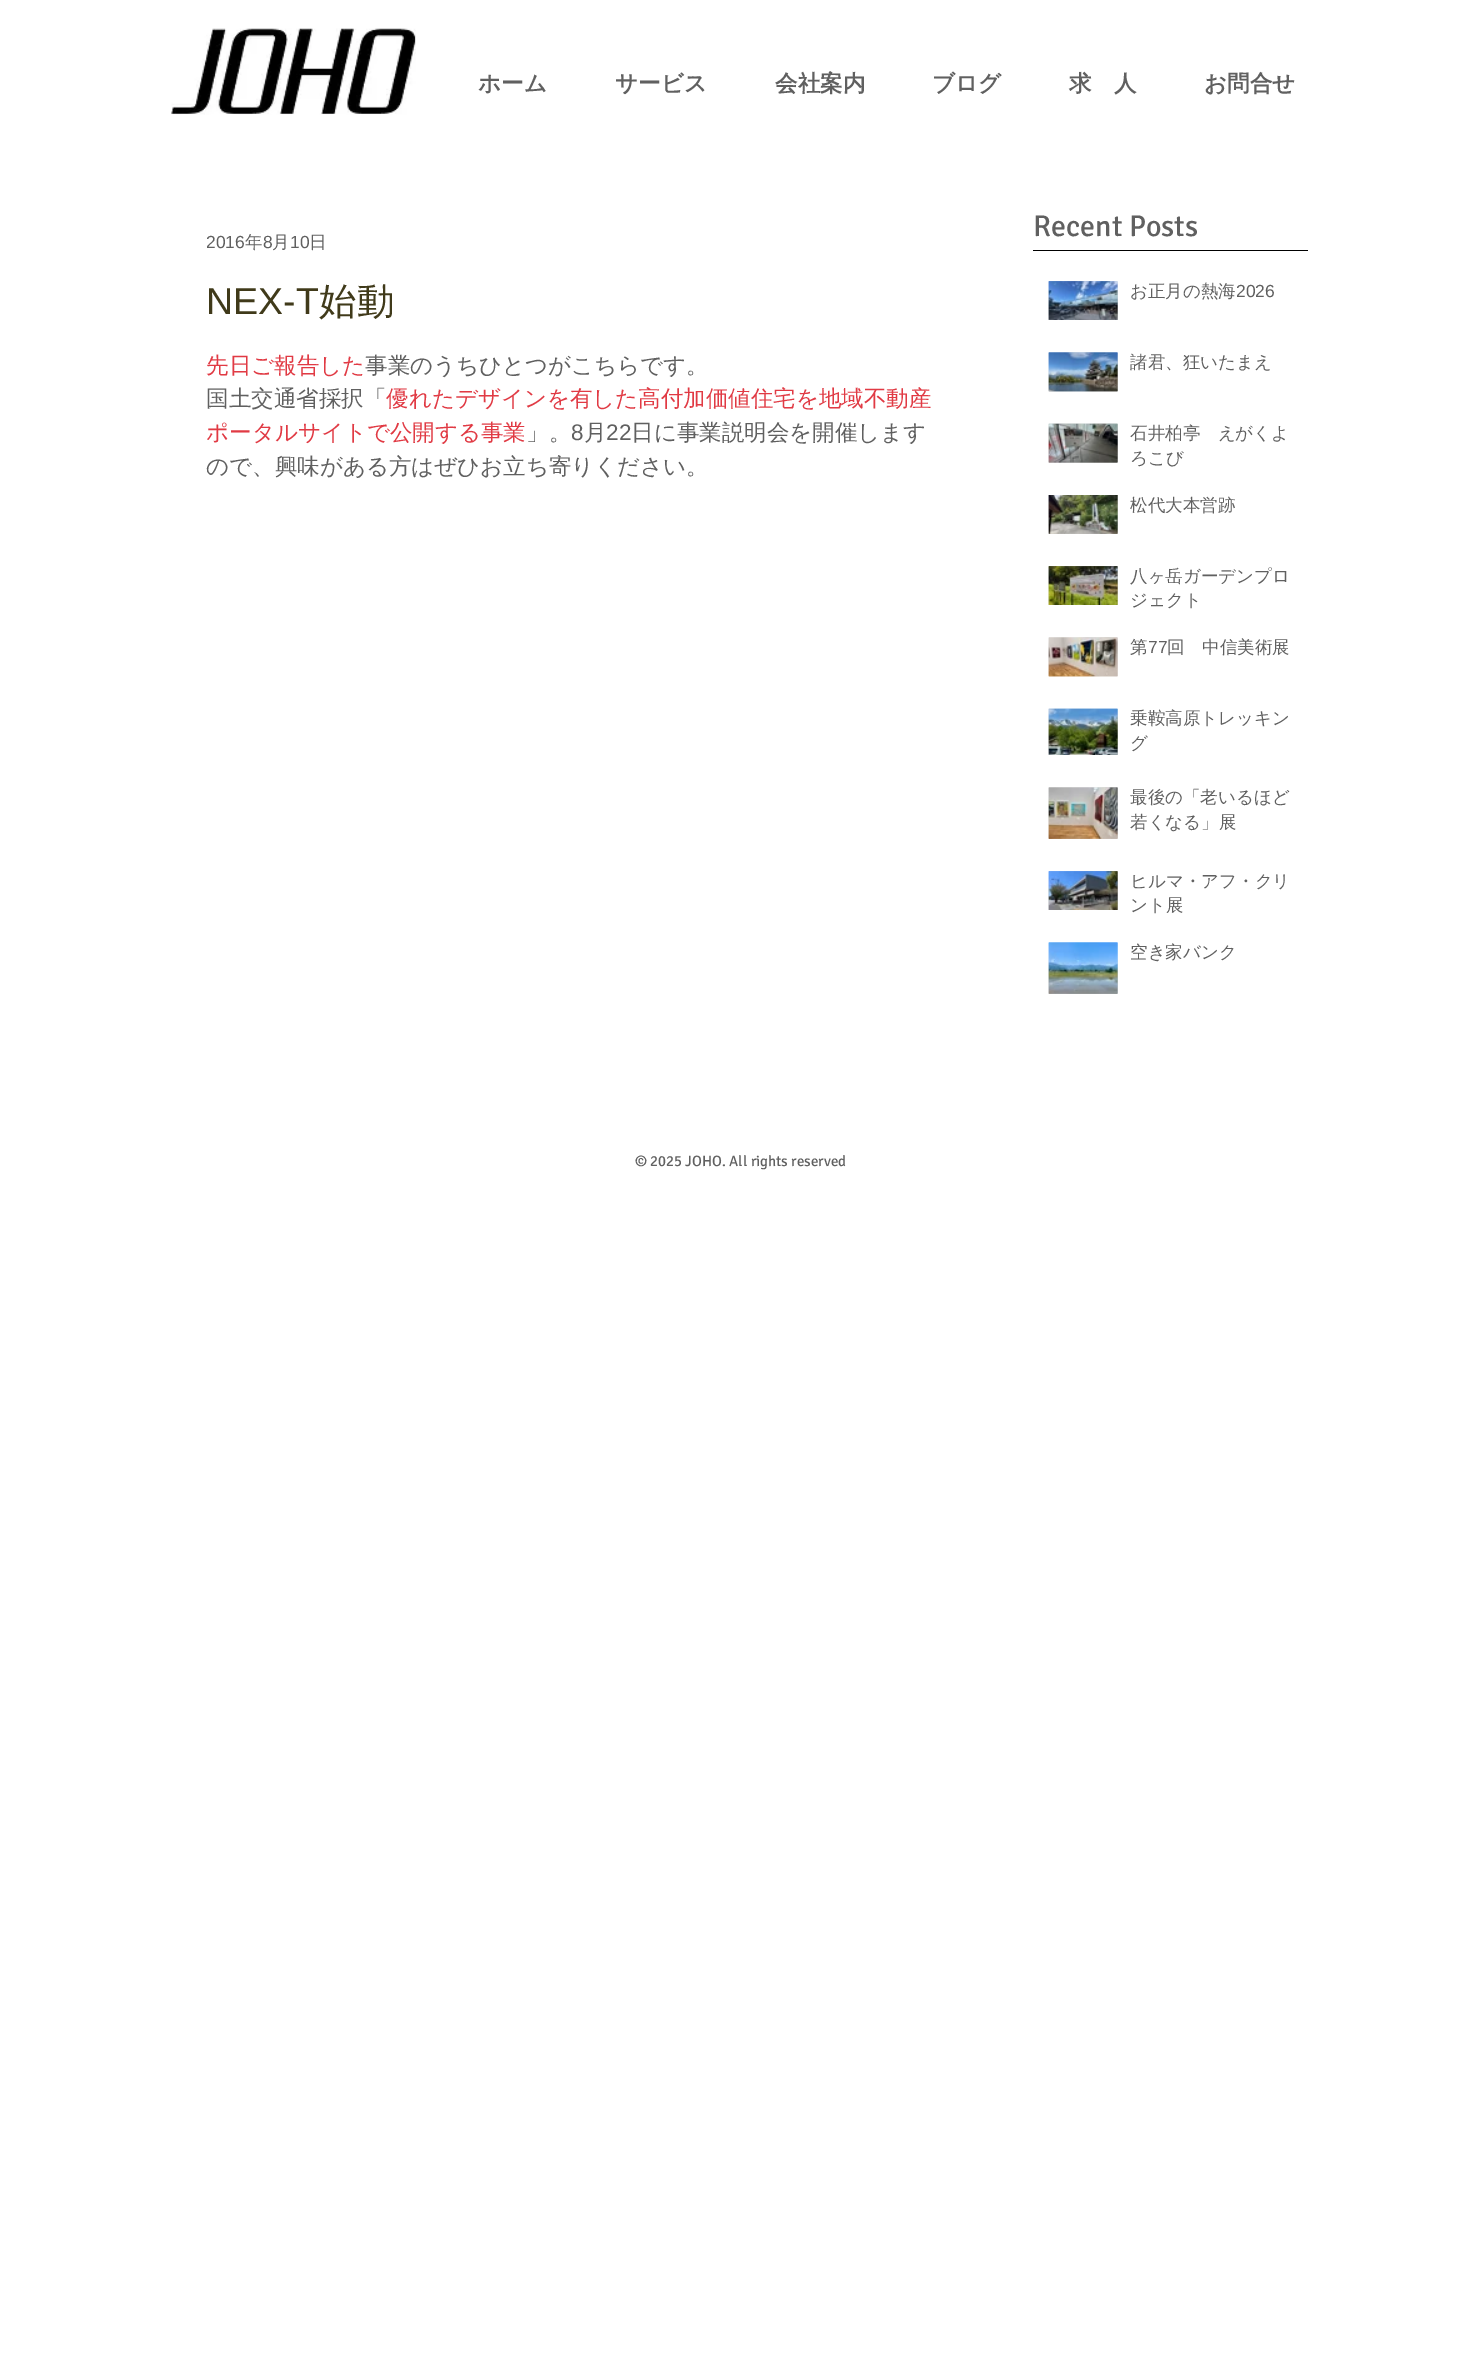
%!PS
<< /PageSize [1467 2367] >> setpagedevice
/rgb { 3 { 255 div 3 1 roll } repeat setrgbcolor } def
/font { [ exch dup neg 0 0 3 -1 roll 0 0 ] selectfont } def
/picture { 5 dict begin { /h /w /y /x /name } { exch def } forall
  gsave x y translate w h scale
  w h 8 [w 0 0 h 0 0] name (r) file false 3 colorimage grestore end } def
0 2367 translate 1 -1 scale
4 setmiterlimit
255 255 255 rgb
0 0 1467 2367 rectfill
(img/1.rgb) 171 28 245 87 picture
0 0 0 rgb
1033 250 275 1 rectfill
(img/2.rgb) 1048 281 70 39 picture
(img/3.rgb) 1048 281 70 39 picture
(img/4.rgb) 1048 352 70 40 picture
(img/5.rgb) 1048 352 70 40 picture
(img/6.rgb) 1048 423 70 40 picture
(img/7.rgb) 1048 423 70 40 picture
(img/8.rgb) 1048 495 70 39 picture
(img/9.rgb) 1048 495 70 39 picture
(img/10.rgb) 1048 566 70 39 picture
(img/11.rgb) 1048 566 70 39 picture
(img/12.rgb) 1048 637 70 40 picture
(img/13.rgb) 1048 637 70 40 picture
(img/14.rgb) 1048 708 70 47 picture
(img/15.rgb) 1048 708 70 47 picture
(img/16.rgb) 1048 787 70 52 picture
(img/17.rgb) 1048 787 70 52 picture
(img/18.rgb) 1048 871 70 39 picture
(img/19.rgb) 1048 871 70 39 picture
(img/20.rgb) 1048 942 70 52 picture
(img/21.rgb) 1048 942 70 52 picture
/WenQuanYiZenHei-Bold 22.5 font
96 96 96 rgb
[
  [(ホーム) 478 91]
  [(サービス) 615 91]
  [(会社案内) 775 91]
  [(ブログ) 932 91]
  [(求　人) 1069 91]
  [(お問合せ) 1204 91]
] { aload pop moveto show } forall
/Signika-Regular 30 font
1033 236 moveto (Recent Posts) show
/LiberationSans-Regular 17.5 font
206 248 moveto (2016) show
/WenQuanYiZenHei-Medium 17.5 font
245 248 moveto (年) show
/LiberationSans-Regular 17.5 font
263 248 moveto (8) show
/WenQuanYiZenHei-Medium 17.5 font
272 248 moveto (月) show
/LiberationSans-Regular 17.5 font
290 248 moveto (10) show
/WenQuanYiZenHei-Medium 17.5 font
309 248 moveto (日) show
/LiberationSans-Regular 37.5 font
64 58 26 rgb
206 314 moveto (NEX-T) show
/WenQuanYiZenHei-Medium 37.5 font
319 314 moveto (始動) show
/WenQuanYiZenHei-Medium 22.5 font
225 58 68 rgb
206 373 moveto (先日ご報告した) show
96 96 96 rgb
365 373 moveto (事業のうちひとつがこちらです。) show
206 406 moveto (国土交通省採択「) show
225 58 68 rgb
386 406 moveto (優れたデザインを有した高付加価値住宅を地域不動産) show
206 440 moveto (ポータルサイトで公開する事業) show
96 96 96 rgb
526 440 moveto (」。) show
/LiberationSans-Regular 22.5 font
571 440 moveto (8) show
/WenQuanYiZenHei-Medium 22.5 font
584 440 moveto (月) show
/LiberationSans-Regular 22.5 font
606 440 moveto (22) show
/WenQuanYiZenHei-Medium 22.5 font
631 440 moveto (日に事業説明会を開催します) show
206 474 moveto (ので、興味がある方はぜひお立ち寄りください。) show
/WenQuanYiZenHei-Medium 17.5 font
1130 297 moveto (お正月の熱海) show
/LiberationSans-Regular 17.5 font
1236 297 moveto (2026) show
/WenQuanYiZenHei-Medium 17.5 font
[
  [(諸君、狂いたまえ) 1130 368]
  [(石井柏亭　えがくよ) 1130 439]
  [(ろこび) 1130 464]
  [(松代大本営跡) 1130 511]
  [(八ヶ岳ガーデンプロ) 1130 582]
  [(ジェクト) 1130 606]
  [(第) 1130 653]
] { aload pop moveto show } forall
/LiberationSans-Regular 17.5 font
1148 653 moveto (77) show
/WenQuanYiZenHei-Medium 17.5 font
[
  [(回　中信美術展) 1167 653]
  [(乗鞍高原トレッキン) 1130 724]
  [(グ) 1130 749]
  [(最後の「老いるほど) 1130 803]
  [(若くなる」展) 1130 828]
  [(ヒルマ・アフ・クリ) 1130 887]
  [(ント展) 1130 911]
  [(空き家バンク) 1130 958]
] { aload pop moveto show } forall
/Signika-Regular 15 font
635 1166 moveto (© 2025 JOHO. All rights reserved) show
showpage
